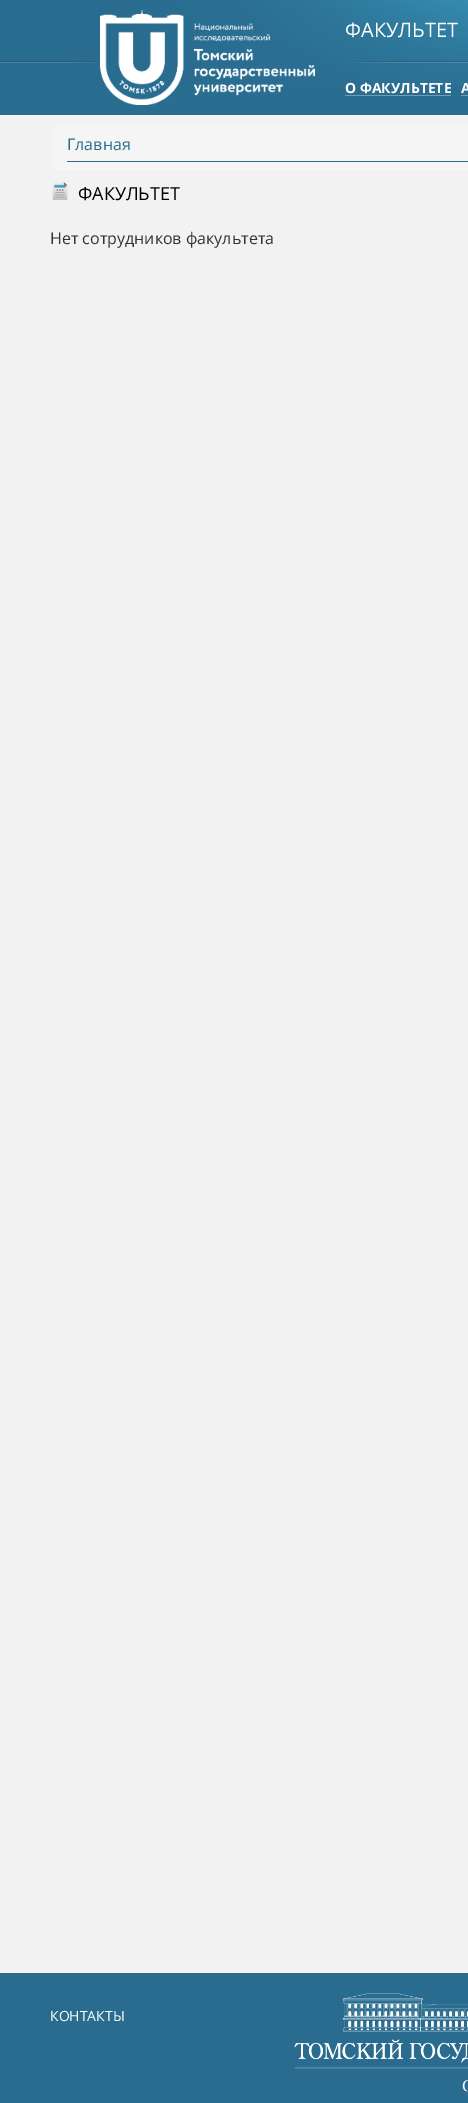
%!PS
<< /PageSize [468 2103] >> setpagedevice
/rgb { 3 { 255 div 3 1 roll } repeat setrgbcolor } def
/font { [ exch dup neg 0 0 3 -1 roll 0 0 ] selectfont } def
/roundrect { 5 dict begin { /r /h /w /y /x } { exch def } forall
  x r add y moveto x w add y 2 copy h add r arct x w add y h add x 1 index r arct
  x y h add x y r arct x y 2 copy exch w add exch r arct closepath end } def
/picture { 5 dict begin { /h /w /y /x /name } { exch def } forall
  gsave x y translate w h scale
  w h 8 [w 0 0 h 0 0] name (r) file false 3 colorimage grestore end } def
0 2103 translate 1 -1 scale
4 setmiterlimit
242 242 242 rgb
0 0 468 2103 rectfill
41 109 144 rgb
0 0 468 115 rectfill
(img/1.rgb) 0 61 69 2 picture
(img/2.rgb) 69 0 399 86 picture
(img/3.rgb) 100 10 215 95 picture
118 154 176 rgb
345 95 106 1 rectfill
461 95 7 1 rectfill
245 245 245 rgb
52 125 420 45 4 roundrect fill
41 108 143 rgb
67 161 401 1 rectfill
(img/4.rgb) 52 182 16 18 picture
0 1973 468 130 rectfill
(img/5.rgb) 294 1993 174 99 picture
/OpenSans-Regular 20 font
255 255 255 rgb
345 37 moveto (ФАКУЛЬТЕТ) show
/OpenSans-Bold 14 font
345 93 moveto (О ФАКУЛЬТЕТЕ) show
461 93 moveto (А) show
/OpenSans-Regular 16 font
41 108 143 rgb
67 150 moveto (Главная) show
/OpenSans-Regular 18 font
0 0 0 rgb
78 200 moveto (ФАКУЛЬТЕТ) show
/OpenSans-Regular 16 font
51 51 51 rgb
50 244 moveto (Нет сотрудников факультета) show
/OpenSans-Regular 14 font
255 255 255 rgb
50 2021 moveto (КОНТАКТЫ) show
showpage
